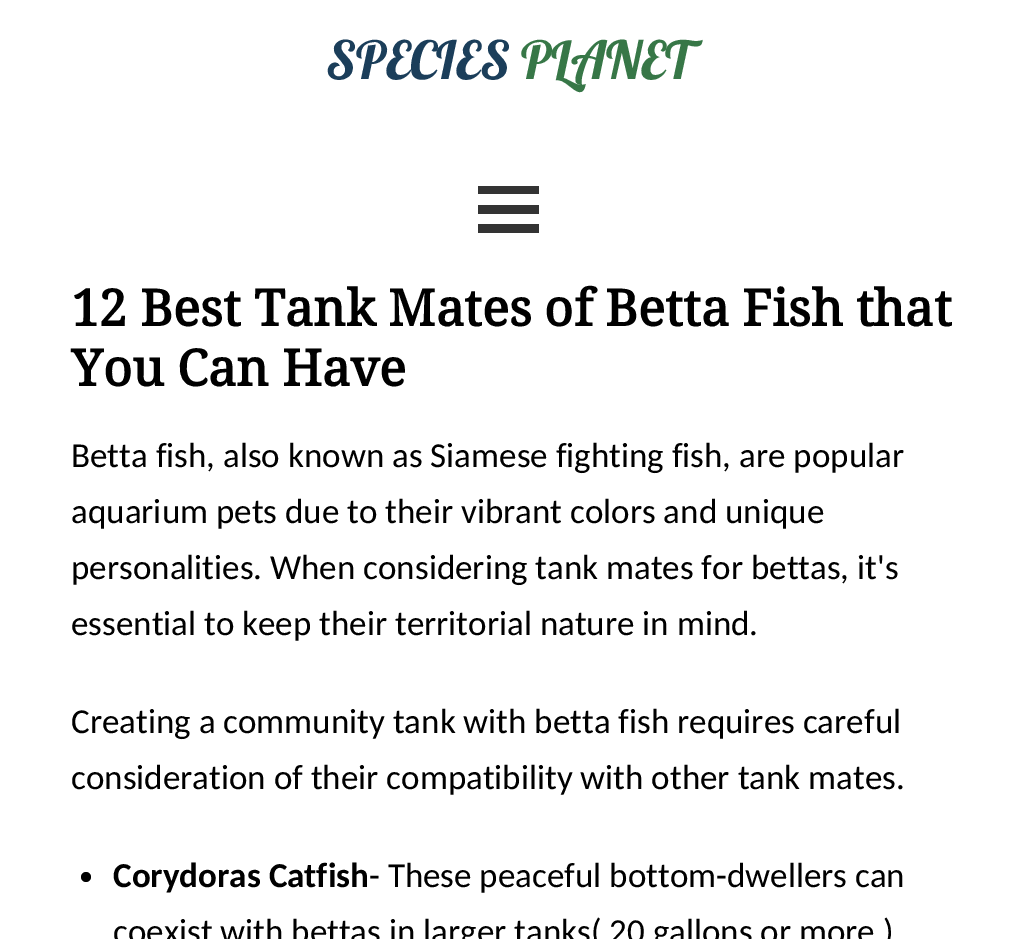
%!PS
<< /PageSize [1016 939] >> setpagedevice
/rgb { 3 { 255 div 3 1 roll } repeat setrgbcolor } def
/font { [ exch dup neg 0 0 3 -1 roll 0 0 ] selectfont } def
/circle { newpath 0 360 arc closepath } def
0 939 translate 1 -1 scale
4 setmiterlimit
255 255 255 rgb
0 0 1016 939 rectfill
[
  [478 186 61 8 51 51 51]
  [478 205 61 9 51 51 51]
  [478 224 61 9 51 51 51]
] { aload pop rgb rectfill } forall
0 0 0 rgb
86 877 5 circle fill
/Lobster-Regular 52.5 font
27 62 90 rgb
326 79 moveto (SPECIES) show
55 119 71 rgb
521 79 moveto (PLANET) show
/DroidSerif-Bold 50.4 font
0 0 0 rgb
71 326 moveto (12 Best Tank Mates of Betta Fish that) show
71 386 moveto (You Can Have) show
/Carlito-Regular 35 font
[
  [(Betta fish, also known as Siamese fighting fish, are popular) 71 467]
  [(aquarium pets due to their vibrant colors and unique) 71 523]
  [(personalities. When considering tank mates for bettas, it's) 71 579]
  [(essential to keep their territorial nature in mind.) 71 635]
  [(Creating a community tank with betta fish requires careful) 71 733]
  [(consideration of their compatibility with other tank mates.) 71 789]
] { aload pop moveto show } forall
/Carlito-Bold 35 font
113 887 moveto (Corydoras Catfish) show
/Carlito-Regular 35 font
369 887 moveto (- These peaceful bottom-dwellers can) show
113 943 moveto (coexist with bettas in larger tanks\( 20 gallons or more \)) show
showpage
